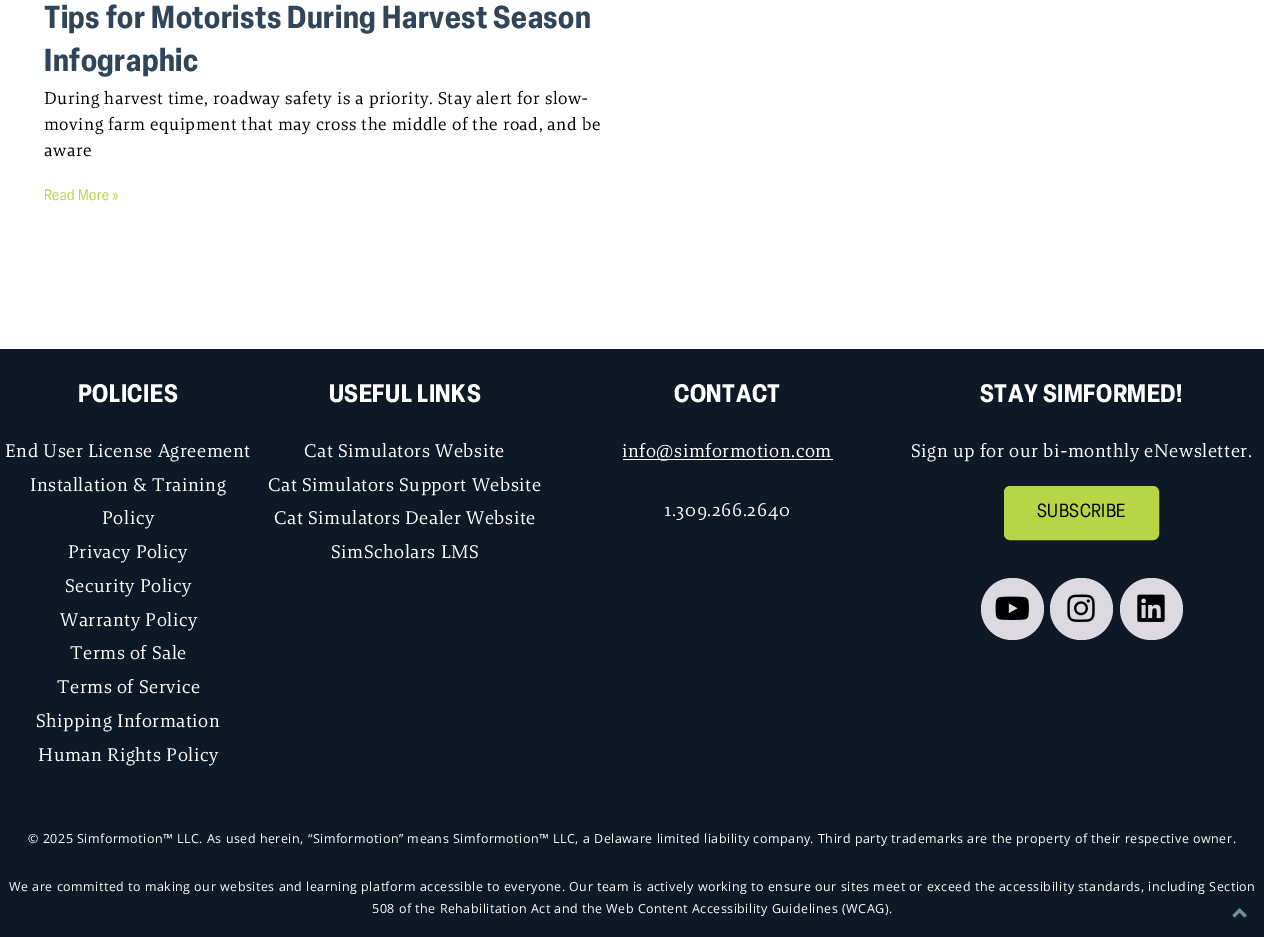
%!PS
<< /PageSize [1264 937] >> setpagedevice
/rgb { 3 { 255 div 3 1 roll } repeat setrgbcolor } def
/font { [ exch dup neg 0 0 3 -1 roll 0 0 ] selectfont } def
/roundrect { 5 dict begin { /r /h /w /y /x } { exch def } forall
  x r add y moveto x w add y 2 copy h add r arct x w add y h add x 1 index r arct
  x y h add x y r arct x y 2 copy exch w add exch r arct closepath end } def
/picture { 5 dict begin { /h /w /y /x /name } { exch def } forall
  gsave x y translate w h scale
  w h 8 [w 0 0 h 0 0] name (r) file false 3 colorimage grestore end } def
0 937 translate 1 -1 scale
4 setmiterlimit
255 255 255 rgb
0 0 1264 937 rectfill
14 25 37 rgb
0 349 1264 588 rectfill
255 255 255 rgb
623 459 210 1 rectfill
183 213 70 rgb
1005.5 487.5 152 51 4.5 roundrect gsave fill grestore
3 setlinewidth
stroke
220 218 224 rgb
981 578 63 62 31 roundrect fill
(img/1.rgb) 995 596 34 24 picture
1050 578 63 62 31 roundrect fill
(img/2.rgb) 1067 594 28 28 picture
1120 578 63 62 31 roundrect fill
(img/3.rgb) 1137 594 28 28 picture
(img/4.rgb) 1232 908 15 10 picture
/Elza-Bold 31.25 font
48 70 88 rgb
44 28 moveto 0.5 0 (Tips for Motorists During Harvest Season) ashow
44 71 moveto 0.5 0 (Infographic) ashow
/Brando-Regular 17.5 font
0 0 0 rgb
44 104 moveto 0.5 0 (During harvest time, roadway safety is a priority. Stay alert for slow-) ashow
44 130 moveto 0.5 0 (moving farm equipment that may cross the middle of the road, and be) ashow
44 156 moveto 0.5 0 (aware) ashow
/Elza-Regular 15 font
181 213 70 rgb
44 200 moveto 0.5 0 (Read More ») ashow
/Elza-Bold 25 font
255 255 255 rgb
78 402 moveto 0.5 0 (POLICIES) ashow
/Brando-Regular 18.75 font
5 457 moveto 0.5 0 (End User License Agreement) ashow
30 491 moveto 0.5 0 (Installation & Training) ashow
102 524 moveto 0.5 0 (Policy) ashow
68 558 moveto 0.5 0 (Privacy Policy) ashow
65 592 moveto 0.5 0 (Security Policy) ashow
60 626 moveto 0.5 0 (Warranty Policy) ashow
70 659 moveto 0.5 0 (Terms of Sale) ashow
57 693 moveto 0.5 0 (Terms of Service) ashow
36 727 moveto 0.5 0 (Shipping Information) ashow
38 761 moveto 0.5 0 (Human Rights Policy) ashow
/Elza-Bold 25 font
329 402 moveto 0.5 0 (USEFUL LINKS) ashow
/Brando-Regular 18.75 font
304 457 moveto 0.5 0 (Cat Simulators Website) ashow
268 491 moveto 0.5 0 (Cat Simulators Support Website) ashow
274 524 moveto 0.5 0 (Cat Simulators Dealer Website) ashow
331 558 moveto 0.5 0 (SimScholars LMS) ashow
/Elza-Bold 25 font
674 402 moveto 0.5 0 (CONTACT) ashow
/Brando-Regular 18.75 font
622 457 moveto 0.5 0 (info@simformotion.com) ashow
664 516 moveto 0.5 0 (1.309.266.2640) ashow
/Elza-Bold 25 font
980 402 moveto 0.5 0 (STAY SIMFORMED!) ashow
/Brando-Regular 18.75 font
911 457 moveto 0.5 0 (Sign up for our bi-monthly eNewsletter.) ashow
/Elza-Regular 18.75 font
0 0 0 rgb
1037 517 moveto 0.5 0 (SUBSCRIBE) ashow
/OpenSans-Regular 12.5 font
255 255 255 rgb
28 843 moveto 0.5 0 (© 2025 Simformotion™ LLC. As used herein, “Simformotion” means Simformotion™ LLC, a Delaware limited liability company. Third party trademarks are the property of their respective owner.) ashow
9 891 moveto 0.5 0 (We are committed to making our websites and learning platform accessible to everyone. Our team is actively working to ensure our sites meet or exceed the accessibility standards, including Section) ashow
372 913 moveto 0.5 0 (508 of the Rehabilitation Act and the Web Content Accessibility Guidelines \(WCAG\).) ashow
showpage
